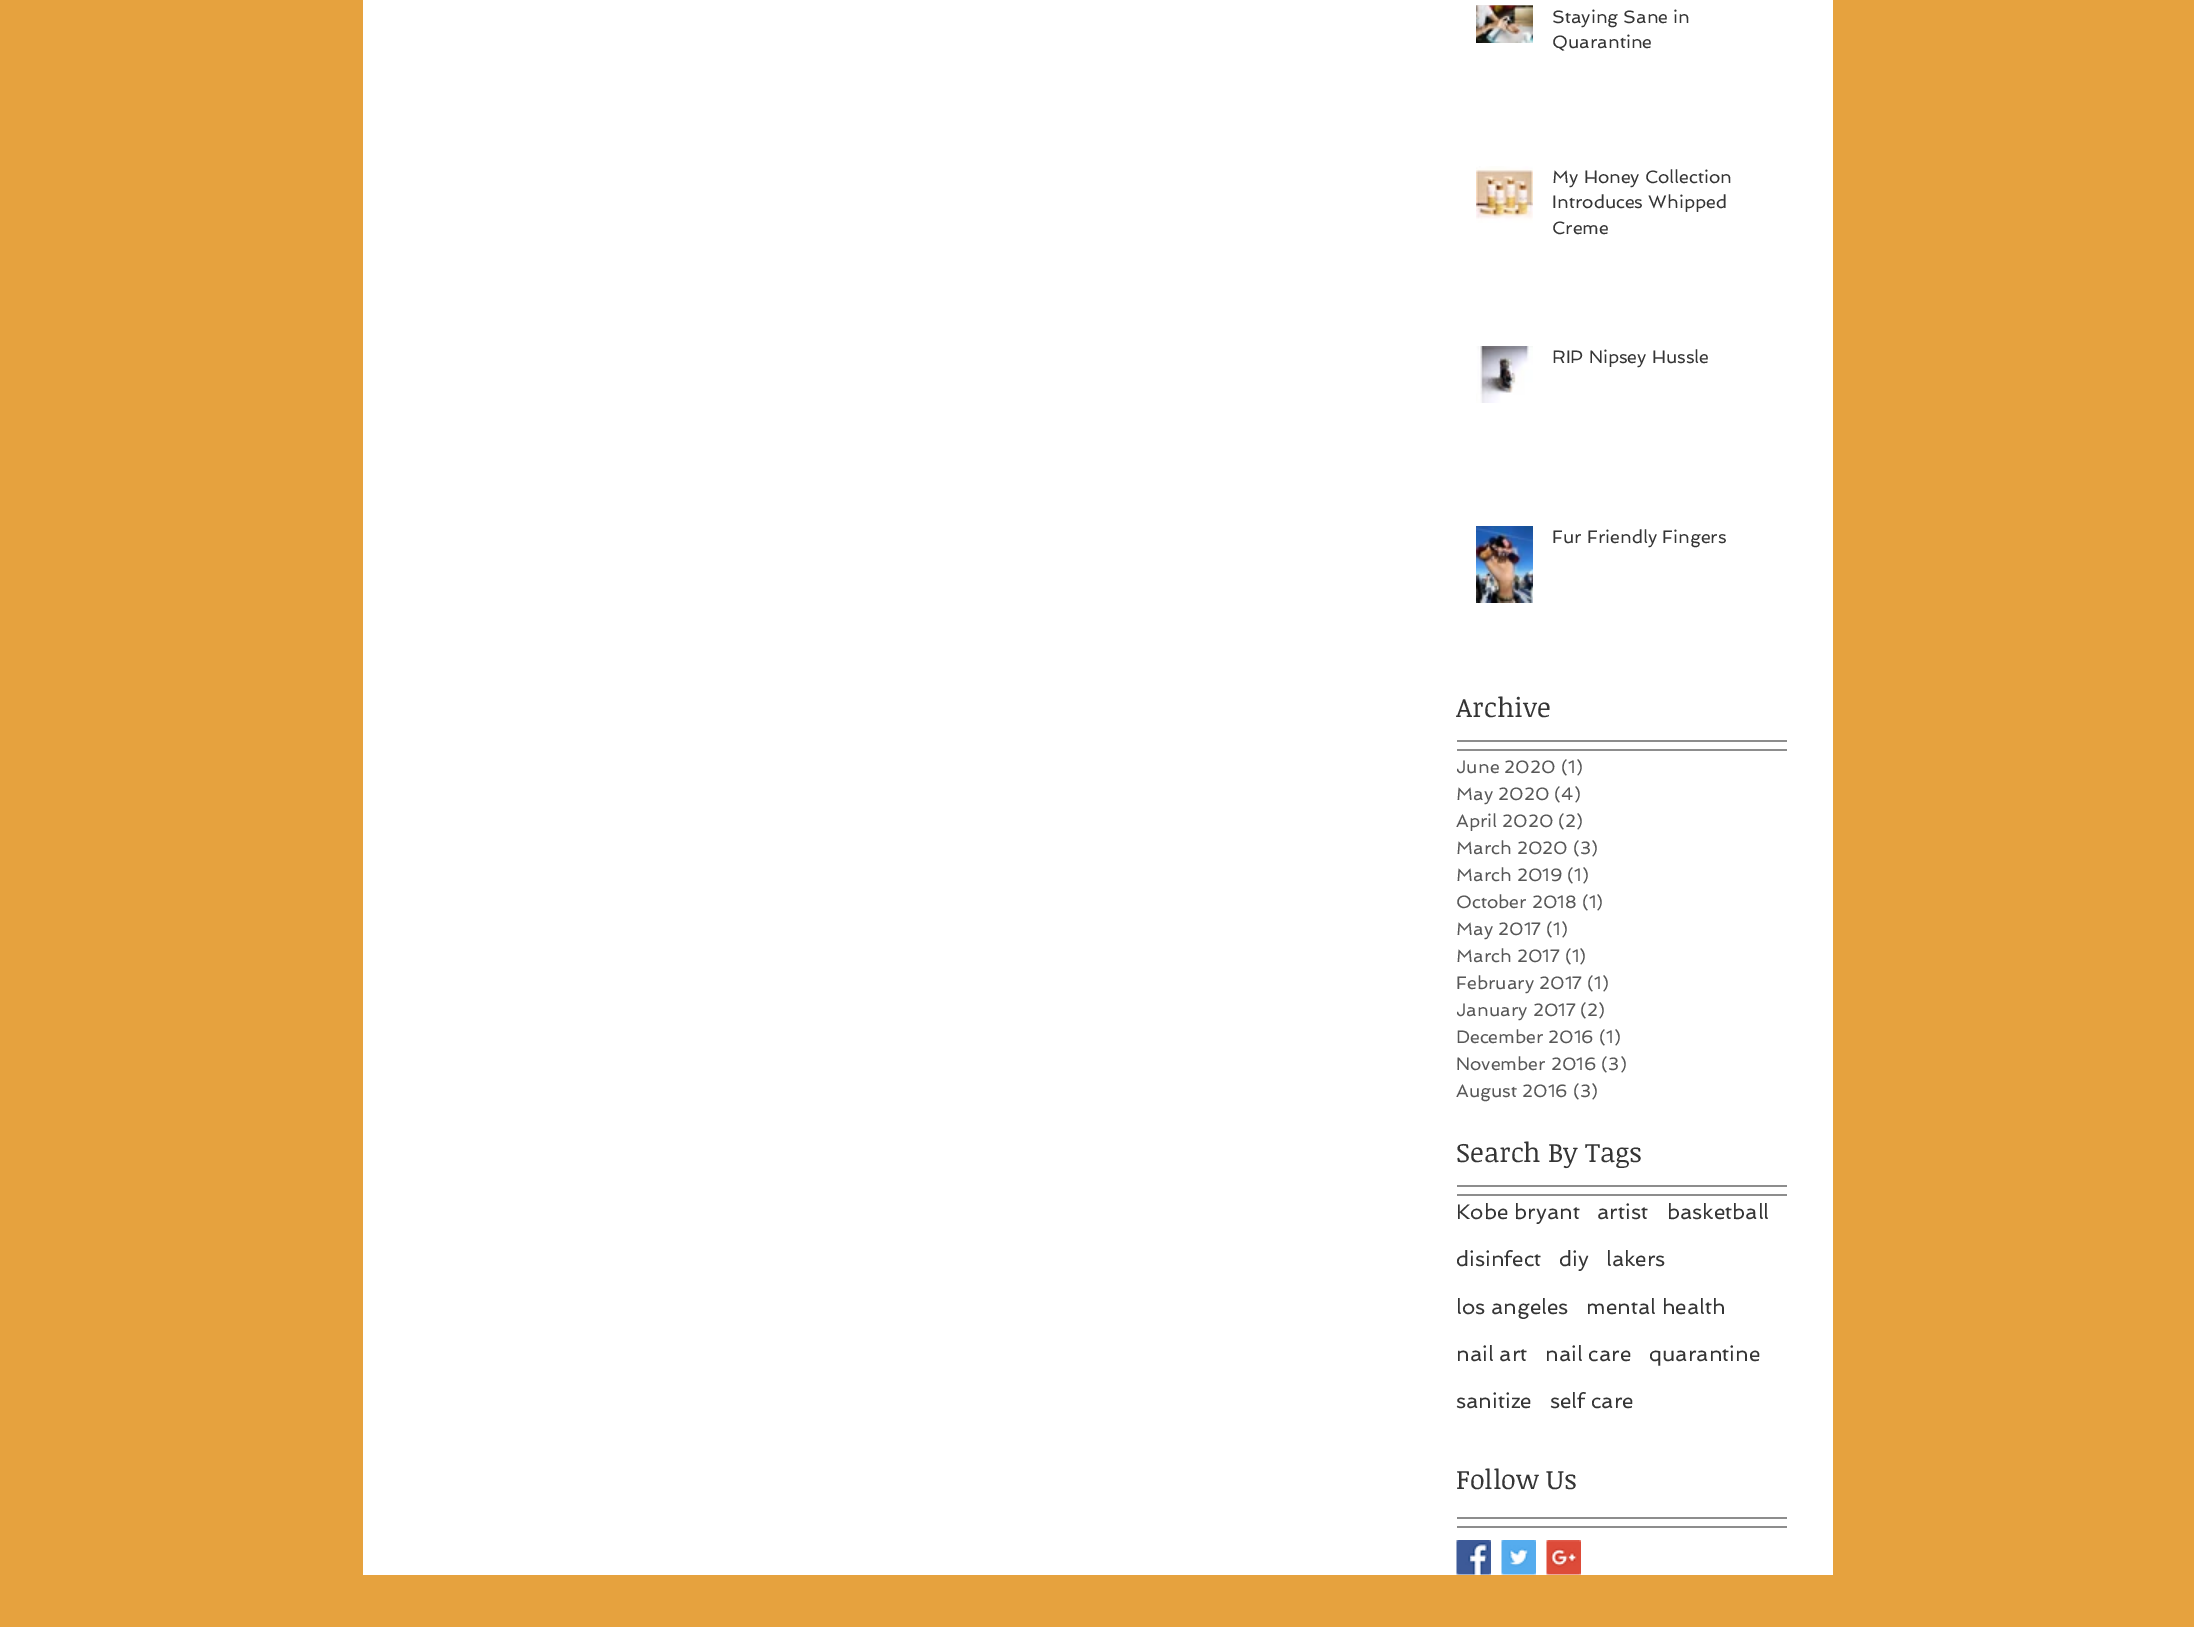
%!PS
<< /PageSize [2194 1627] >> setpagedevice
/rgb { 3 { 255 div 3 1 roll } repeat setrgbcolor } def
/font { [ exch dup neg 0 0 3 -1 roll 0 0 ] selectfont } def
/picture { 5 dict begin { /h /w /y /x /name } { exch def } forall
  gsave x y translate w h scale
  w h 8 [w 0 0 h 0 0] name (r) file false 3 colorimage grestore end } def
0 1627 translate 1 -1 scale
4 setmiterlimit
230 162 62 rgb
0 0 2194 1627 rectfill
255 255 255 rgb
363 0 1470 1575 rectfill
(img/1.rgb) 1476 5 57 1 picture
(img/2.rgb) 1476 5 57 38 picture
(img/3.rgb) 1476 166 57 57 picture
(img/4.rgb) 1476 346 57 57 picture
(img/5.rgb) 1476 526 57 77 picture
[
  [1457 740 330 2 141 141 141]
  [1457 749 330 2 141 141 141]
  [1457 1185 330 2 141 141 141]
  [1457 1194 330 2 141 141 141]
  [1457 1517 330 2 141 141 141]
  [1457 1526 330 2 141 141 141]
] { aload pop rgb rectfill } forall
(img/6.rgb) 1456 1540 35 35 picture
(img/7.rgb) 1501 1540 35 35 picture
(img/8.rgb) 1546 1540 35 35 picture
/Spinnaker-Regular 18 font
53 53 53 rgb
[
  [(Staying Sane in) 1552 23]
  [(Quarantine) 1552 48]
  [(My Honey Collection) 1552 183]
  [(Introduces Whipped) 1552 208]
  [(Creme) 1552 234]
  [(RIP Nipsey Hussle) 1552 363]
  [(Fur Friendly Fingers) 1552 543]
] { aload pop moveto show } forall
/NoticiaText-Regular 27 font
1456 717 moveto (Archive) show
gsave
1457 753 126 27 rectclip
/Spinnaker-Regular 18 font
88 88 88 rgb
1456 773 moveto (June 2020) show
grestore
/Spinnaker-Regular 18 font
88 88 88 rgb
[
  [(\(1\)) 1561 773]
  [(May 2020 \(4\)) 1456 800]
  [(April 2020 \(2\)) 1456 827]
  [(March 2020 \(3\)) 1456 854]
  [(March 2019 \(1\)) 1456 881]
  [(October 2018 \(1\)) 1456 908]
  [(May 2017 \(1\)) 1456 935]
  [(March 2017 \(1\)) 1456 962]
  [(February 2017 \(1\)) 1456 989]
] { aload pop moveto show } forall
gsave
1457 996 148 27 rectclip
1456 1016 moveto (January 2017) show
grestore
[
  [(\(2\)) 1580 1016]
  [(December 2016 \(1\)) 1456 1043]
  [(November 2016 \(3\)) 1456 1070]
  [(August 2016 \(3\)) 1456 1097]
] { aload pop moveto show } forall
/NoticiaText-Regular 27 font
53 53 53 rgb
1456 1162 moveto (Search By Tags) show
/Spinnaker-Regular 21 font
[
  [(Kobe bryant) 1456 1219]
  [(artist) 1597 1219]
  [(basketball) 1667 1219]
] { aload pop moveto show } forall
gsave
1457 1245 84 30 rectclip
1456 1266 moveto (disinfect) show
grestore
[
  [(diy) 1559 1266]
  [(lakers) 1606 1266]
  [(los angeles) 1456 1314]
  [(mental health) 1586 1314]
  [(nail art) 1456 1361]
  [(nail care) 1545 1361]
  [(quarantine) 1649 1361]
  [(sanitize) 1456 1408]
  [(self care) 1550 1408]
] { aload pop moveto show } forall
/NoticiaText-Regular 27 font
1456 1489 moveto (Follow Us) show
showpage
